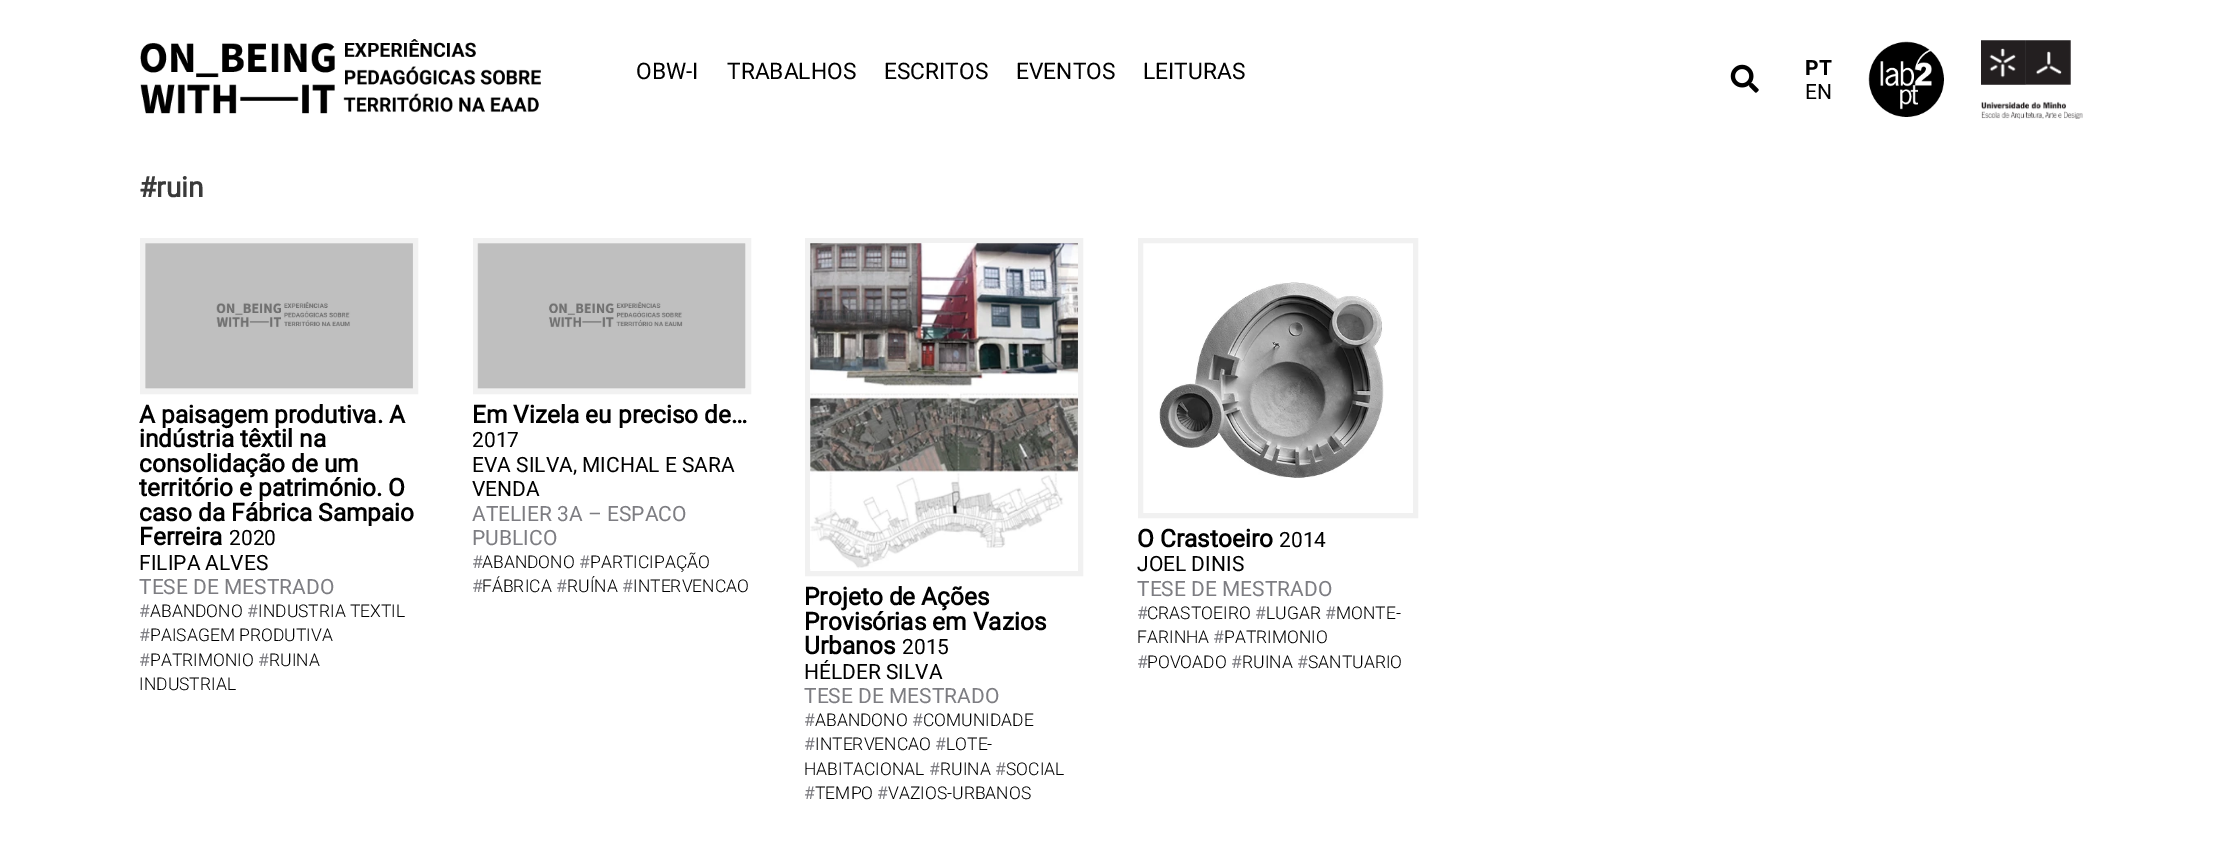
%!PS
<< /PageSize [2220 850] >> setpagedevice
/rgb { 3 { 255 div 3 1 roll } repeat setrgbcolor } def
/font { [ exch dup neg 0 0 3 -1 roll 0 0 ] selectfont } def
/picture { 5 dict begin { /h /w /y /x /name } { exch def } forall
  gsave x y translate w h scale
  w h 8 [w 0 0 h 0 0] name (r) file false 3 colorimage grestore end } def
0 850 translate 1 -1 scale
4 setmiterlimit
255 255 255 rgb
0 0 2220 850 rectfill
(img/1.rgb) 140 39 401 75 picture
(img/2.rgb) 1730 64 29 29 picture
(img/3.rgb) 1868 41 76 76 picture
(img/4.rgb) 1981 40 102 79 picture
241 241 241 rgb
5 setlinewidth
142.5 240.5 273 151 rectstroke
(img/5.rgb) 145 243 268 146 picture
475.5 240.5 273 151 rectstroke
(img/6.rgb) 477 243 269 146 picture
807.5 240.5 273 333 rectstroke
(img/7.rgb) 810 243 268 326 picture
1140.5 240.5 275 275 rectstroke
(img/8.rgb) 1159 282 225 196 picture
/Roboto-Regular 22.75 font
0 0 0 rgb
[
  [(OBW-I) 636 79]
  [(TRABALHOS) 727 79]
  [(ESCRITOS) 884 79]
  [(EVENTOS) 1016 79]
  [(LEITURAS) 1143 79]
] { aload pop moveto show } forall
/Roboto-Bold 21 font
1805 75 moveto (PT) show
/Roboto-Regular 21 font
1805 99 moveto (EN) show
/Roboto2-Bold 28 font
58 58 58 rgb
139 197 moveto (#ruin) show
/Roboto2-Bold 24.5 font
0 0 0 rgb
[
  [(A paisagem produtiva. A) 139 423]
  [(indústria têxtil na) 139 447]
  [(consolidação de um) 139 472]
  [(território e património. O) 139 496]
  [(caso da Fábrica Sampaio) 139 521]
  [(Ferreira) 139 545]
] { aload pop moveto show } forall
/Roboto-Regular 21 font
229 545 moveto (2020) show
139 570 moveto (FILIPA ALVES) show
125 125 130 rgb
139 594 moveto (TESE DE MESTRADO) show
/Roboto-Regular 17.5 font
139 617 moveto (#) show
/Roboto-Light 17.5 font
0 0 0 rgb
150 617 moveto (ABANDONO) show
/Roboto-Regular 17.5 font
125 125 130 rgb
247 617 moveto (#) show
/Roboto-Light 17.5 font
0 0 0 rgb
258 617 moveto (INDUSTRIA TEXTIL) show
/Roboto-Regular 17.5 font
125 125 130 rgb
139 641 moveto (#) show
/Roboto-Light 17.5 font
0 0 0 rgb
150 641 moveto (PAISAGEM PRODUTIVA) show
/Roboto-Regular 17.5 font
125 125 130 rgb
139 666 moveto (#) show
/Roboto-Light 17.5 font
0 0 0 rgb
150 666 moveto (PATRIMONIO) show
/Roboto-Regular 17.5 font
125 125 130 rgb
258 666 moveto (#) show
/Roboto-Light 17.5 font
0 0 0 rgb
269 666 moveto (RUINA) show
139 690 moveto (INDUSTRIAL) show
/Roboto2-Bold 24.5 font
472 423 moveto (Em Vizela eu preciso de…) show
/Roboto-Regular 21 font
[
  [(2017) 472 447]
  [(EVA SILVA, MICHAL E SARA) 472 472]
  [(VENDA) 472 496]
] { aload pop moveto show } forall
125 125 130 rgb
472 521 moveto (ATELIER 3A – ESPACO) show
472 545 moveto (PUBLICO) show
/Roboto-Regular 17.5 font
472 568 moveto (#) show
/Roboto-Light 17.5 font
0 0 0 rgb
482 568 moveto (ABANDONO) show
/Roboto-Regular 17.5 font
125 125 130 rgb
579 568 moveto (#) show
/Roboto-Light 17.5 font
0 0 0 rgb
590 568 moveto (PARTICIPAÇÃO) show
/Roboto-Regular 17.5 font
125 125 130 rgb
472 592 moveto (#) show
/Roboto-Light 17.5 font
0 0 0 rgb
482 592 moveto (FÁBRICA) show
/Roboto-Regular 17.5 font
125 125 130 rgb
556 592 moveto (#) show
/Roboto-Light 17.5 font
0 0 0 rgb
567 592 moveto (RUÍNA) show
/Roboto-Regular 17.5 font
125 125 130 rgb
622 592 moveto (#) show
/Roboto-Light 17.5 font
0 0 0 rgb
633 592 moveto (INTERVENCAO) show
/Roboto2-Bold 24.5 font
[
  [(Projeto de Ações) 804 605]
  [(Provisórias em Vazios) 804 630]
  [(Urbanos) 804 654]
] { aload pop moveto show } forall
/Roboto-Regular 21 font
902 654 moveto (2015) show
804 679 moveto (HÉLDER SILVA) show
125 125 130 rgb
804 703 moveto (TESE DE MESTRADO) show
/Roboto-Regular 17.5 font
804 726 moveto (#) show
/Roboto-Light 17.5 font
0 0 0 rgb
815 726 moveto (ABANDONO) show
/Roboto-Regular 17.5 font
125 125 130 rgb
912 726 moveto (#) show
/Roboto-Light 17.5 font
0 0 0 rgb
923 726 moveto (COMUNIDADE) show
/Roboto-Regular 17.5 font
125 125 130 rgb
804 750 moveto (#) show
/Roboto-Light 17.5 font
0 0 0 rgb
815 750 moveto (INTERVENCAO) show
/Roboto-Regular 17.5 font
125 125 130 rgb
935 750 moveto (#) show
/Roboto-Light 17.5 font
0 0 0 rgb
946 750 moveto (LOTE-) show
804 775 moveto (HABITACIONAL) show
/Roboto-Regular 17.5 font
125 125 130 rgb
929 775 moveto (#) show
/Roboto-Light 17.5 font
0 0 0 rgb
940 775 moveto (RUINA) show
/Roboto-Regular 17.5 font
125 125 130 rgb
995 775 moveto (#) show
/Roboto-Light 17.5 font
0 0 0 rgb
1006 775 moveto (SOCIAL) show
/Roboto-Regular 17.5 font
125 125 130 rgb
804 799 moveto (#) show
/Roboto-Light 17.5 font
0 0 0 rgb
815 799 moveto (TEMPO) show
/Roboto-Regular 17.5 font
125 125 130 rgb
877 799 moveto (#) show
/Roboto-Light 17.5 font
0 0 0 rgb
888 799 moveto (VAZIOS-URBANOS) show
/Roboto2-Bold 24.5 font
1137 547 moveto (O Crastoeiro) show
/Roboto-Regular 21 font
1279 547 moveto (2014) show
1137 571 moveto (JOEL DINIS) show
125 125 130 rgb
1137 596 moveto (TESE DE MESTRADO) show
/Roboto-Regular 17.5 font
1137 619 moveto (#) show
/Roboto-Light 17.5 font
0 0 0 rgb
1147 619 moveto (CRASTOEIRO) show
/Roboto-Regular 17.5 font
125 125 130 rgb
1255 619 moveto (#) show
/Roboto-Light 17.5 font
0 0 0 rgb
1266 619 moveto (LUGAR) show
/Roboto-Regular 17.5 font
125 125 130 rgb
1325 619 moveto (#) show
/Roboto-Light 17.5 font
0 0 0 rgb
1336 619 moveto (MONTE-) show
1137 643 moveto (FARINHA) show
/Roboto-Regular 17.5 font
125 125 130 rgb
1213 643 moveto (#) show
/Roboto-Light 17.5 font
0 0 0 rgb
1224 643 moveto (PATRIMONIO) show
/Roboto-Regular 17.5 font
125 125 130 rgb
1137 668 moveto (#) show
/Roboto-Light 17.5 font
0 0 0 rgb
1147 668 moveto (POVOADO) show
/Roboto-Regular 17.5 font
125 125 130 rgb
1231 668 moveto (#) show
/Roboto-Light 17.5 font
0 0 0 rgb
1242 668 moveto (RUINA) show
/Roboto-Regular 17.5 font
125 125 130 rgb
1297 668 moveto (#) show
/Roboto-Light 17.5 font
0 0 0 rgb
1308 668 moveto (SANTUARIO) show
showpage
